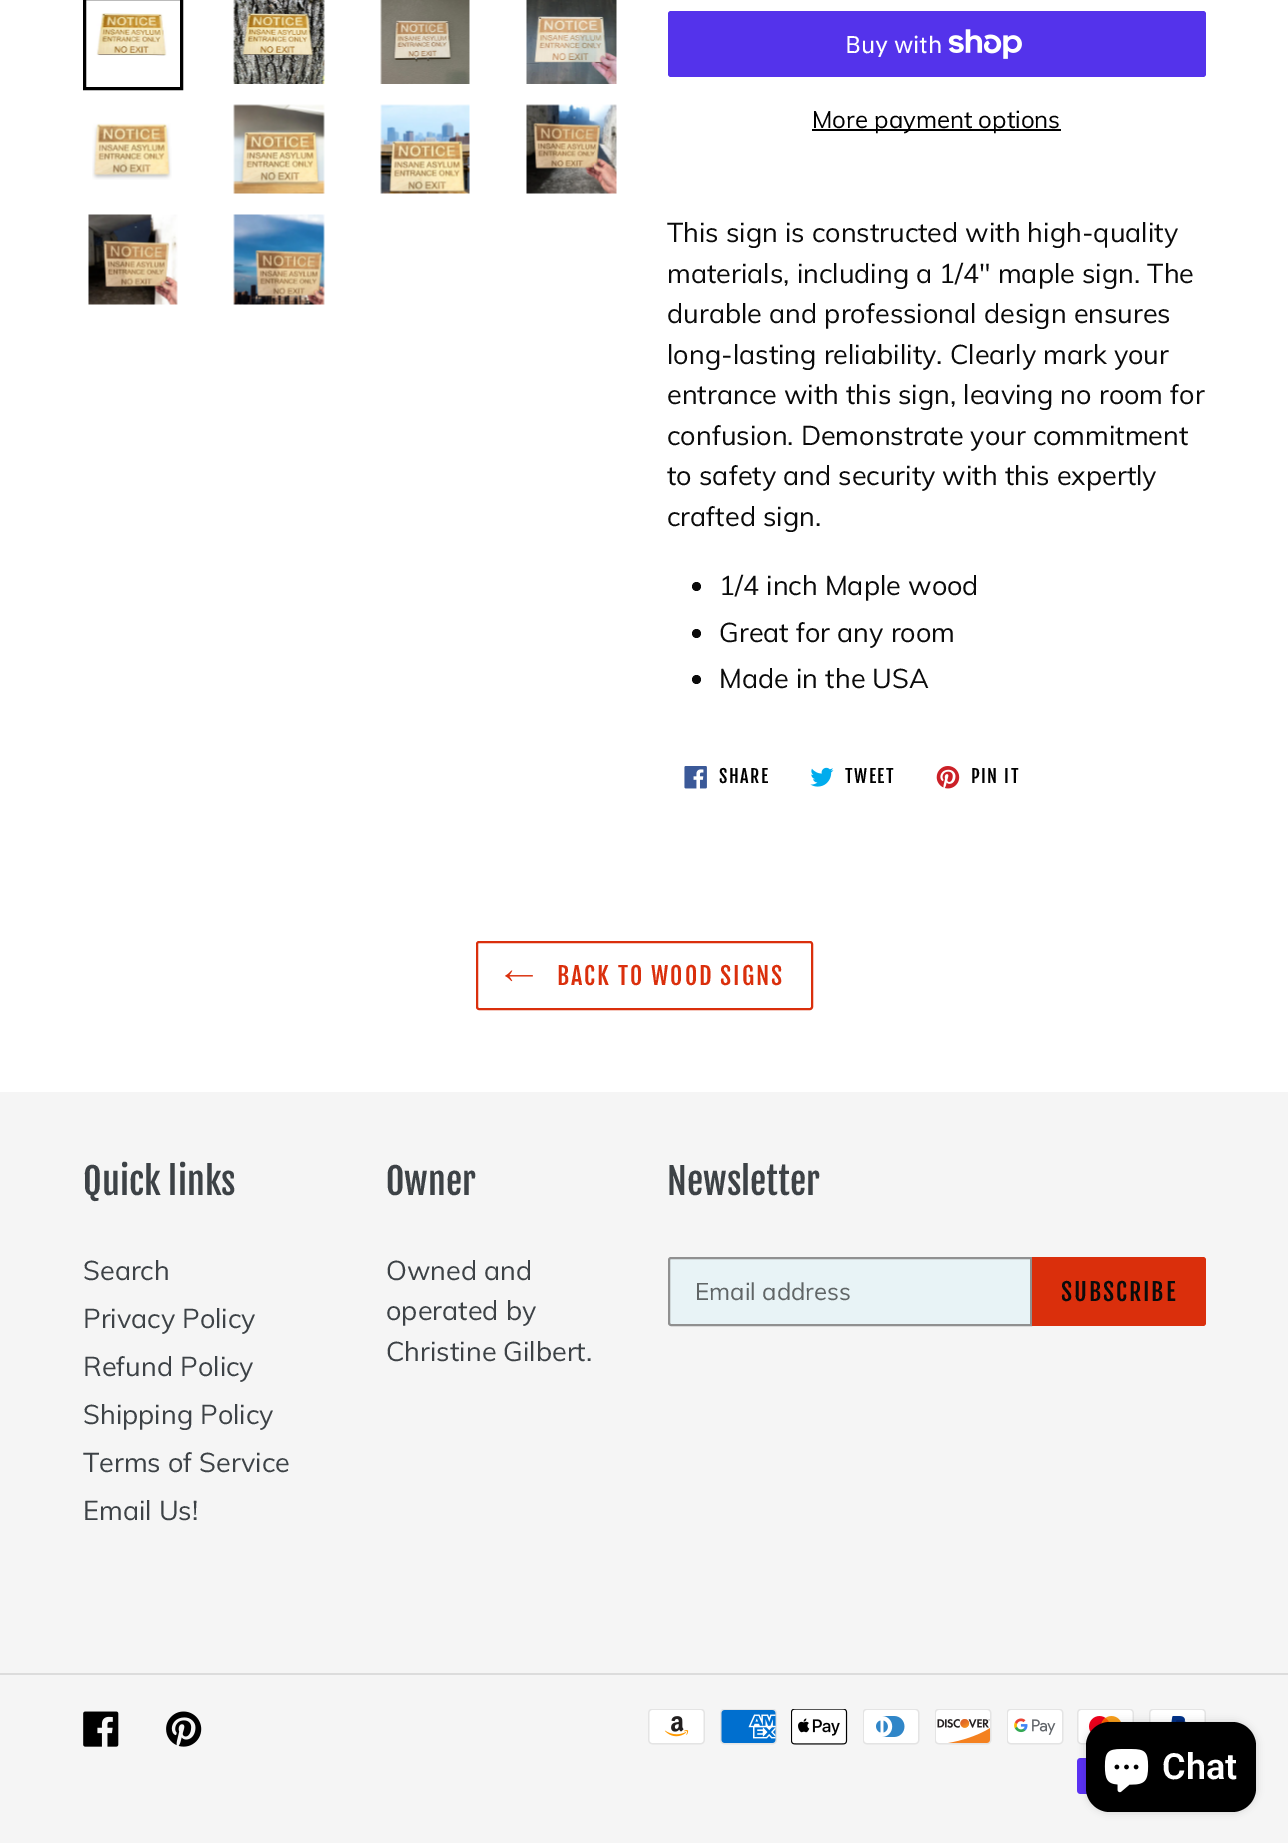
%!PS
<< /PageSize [1288 1843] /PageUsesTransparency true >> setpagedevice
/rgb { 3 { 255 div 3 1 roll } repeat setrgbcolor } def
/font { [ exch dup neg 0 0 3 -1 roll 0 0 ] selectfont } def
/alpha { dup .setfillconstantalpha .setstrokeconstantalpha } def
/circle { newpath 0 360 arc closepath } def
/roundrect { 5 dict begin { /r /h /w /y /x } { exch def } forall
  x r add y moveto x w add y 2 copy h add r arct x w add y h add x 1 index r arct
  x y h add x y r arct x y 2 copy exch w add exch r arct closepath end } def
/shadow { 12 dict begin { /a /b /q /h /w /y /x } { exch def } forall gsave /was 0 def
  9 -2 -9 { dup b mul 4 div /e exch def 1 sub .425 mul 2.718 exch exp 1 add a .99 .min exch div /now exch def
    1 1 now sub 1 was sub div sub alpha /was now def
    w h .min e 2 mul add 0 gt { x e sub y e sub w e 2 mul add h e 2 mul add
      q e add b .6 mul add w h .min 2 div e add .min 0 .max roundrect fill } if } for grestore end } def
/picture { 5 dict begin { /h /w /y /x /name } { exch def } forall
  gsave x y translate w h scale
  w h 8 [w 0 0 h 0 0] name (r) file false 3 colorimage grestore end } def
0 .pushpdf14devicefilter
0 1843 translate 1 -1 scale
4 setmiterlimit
255 255 255 rgb
0 0 1288 1843 rectfill
0 0 0 rgb
3 setlinewidth
84.5 -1.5 97 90 rectstroke
(img/1.rgb) 96 13 71 43 picture
(img/2.rgb) 233 0 92 84 picture
(img/3.rgb) 380 0 90 84 picture
(img/4.rgb) 526 0 91 84 picture
(img/5.rgb) 92 123 80 57 picture
(img/6.rgb) 233 104 92 90 picture
(img/7.rgb) 380 104 90 90 picture
(img/8.rgb) 526 104 91 90 picture
(img/9.rgb) 88 214 90 91 picture
(img/10.rgb) 233 214 92 91 picture
84 51 235 rgb
668 11 538 66 3 roundrect fill
(img/11.rgb) 948 29 74 30 picture
0 0 0 rgb
812 129 249 2 rectfill
11 11 11 rgb
696.5 586.5 4.5 circle fill
696.5 633.5 4.5 circle fill
696.5 679.5 4.5 circle fill
(img/12.rgb) 684 766 23 23 picture
(img/13.rgb) 810 767 24 20 picture
(img/14.rgb) 936 766 24 23 picture
218 47 12 rgb
2 setlinewidth
477 942 335 67 2 roundrect stroke
(img/15.rgb) 505 970 28 12 picture
245 245 245 rgb
0 1092 1288 751 rectfill
232 243 246 rgb
671 1258 moveto 1031 1258 lineto 1031 1325 lineto 671 1325 lineto 670 1325 669 1324 669 1323 curveto 669 1260 lineto 669 1259 670 1258 671 1258 curveto closepath gsave fill grestore
144 144 144 rgb
stroke
218 47 12 rgb
1032 1257 moveto 1203 1257 lineto 1204.5 1257 1206 1258.5 1206 1260 curveto 1206 1323 lineto 1206 1324.5 1204.5 1326 1203 1326 curveto 1032 1326 lineto closepath fill
220 220 220 rgb
0 1673 1288 2 rectfill
(img/16.rgb) 83 1711 36 36 picture
(img/17.rgb) 166 1711 36 36 picture
(img/18.rgb) 648 1709 57 36 picture
(img/19.rgb) 720 1709 57 36 picture
(img/20.rgb) 791 1709 57 36 picture
(img/21.rgb) 863 1709 57 36 picture
(img/22.rgb) 935 1709 57 36 picture
(img/23.rgb) 1007 1709 57 36 picture
(img/24.rgb) 1077 1709 57 36 picture
(img/25.rgb) 1149 1709 57 13 picture
(img/26.rgb) 1077 1758 10 36 picture
0 0 0 rgb
1086 1722 170 90 24 4 0.15 shadow
1086 1722 170 90 24 roundrect fill
(img/27.rgb) 1104 1749 45 44 picture
/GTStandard-Regular 24 font
255 255 255 rgb
845 53 moveto (Buy with) show
/Muli-Regular 24 font
0 0 0 rgb
812 128 moveto (More payment options) show
/Muli-Regular 27 font
11 11 11 rgb
[
  [(This sign is constructed with high-quality) 667 242]
  [(materials, including a 1/4" maple sign. The) 667 283]
  [(durable and professional design ensures) 667 323]
  [(long-lasting reliability. Clearly mark your) 667 364]
  [(entrance with this sign, leaving no room for) 667 404]
  [(confusion. Demonstrate your commitment) 667 445]
  [(to safety and security with this expertly) 667 485]
  [(crafted sign.) 667 526]
  [(1/4 inch Maple wood) 719 595]
  [(Great for any room) 719 642]
  [(Made in the USA) 719 688]
] { aload pop moveto show } forall
/FjallaOne-Regular 18 font
0 0 0 rgb
719 783 moveto 1.5 0 (SHARE) ashow
845 783 moveto 1.5 0 (TWEET) ashow
971 783 moveto 1.5 0 (PIN IT) ashow
/FjallaOne-Regular 24 font
218 47 12 rgb
557 985 moveto 1.9 0 (BACK TO WOOD SIGNS) ashow
/FjallaOne-Regular 36 font
61 66 70 rgb
83 1195 moveto (Quick links) show
/Muli-Regular 27 font
[
  [(Search) 83 1280]
  [(Privacy Policy) 83 1328]
  [(Refund Policy) 83 1376]
  [(Shipping Policy) 83 1424]
  [(Terms of Service) 83 1472]
  [(Email Us!) 83 1520]
] { aload pop moveto show } forall
/FjallaOne-Regular 36 font
386 1195 moveto (Owner) show
/Muli-Regular 27 font
[
  [(Owned and) 386 1280]
  [(operated by) 386 1320]
  [(Christine Gilbert.) 386 1361]
] { aload pop moveto show } forall
/FjallaOne-Regular 36 font
667 1195 moveto (Newsletter) show
/Muli-Regular 24 font
96 101 102 rgb
695 1300 moveto (Email address) show
/FjallaOne-Regular 24 font
11 11 11 rgb
1061 1301 moveto 1.9 0 (SUBSCRIBE) ashow
/Roboto-SemiBold 36 font
255 255 255 rgb
1162 1779 moveto (Chat) show
.poppdf14devicefilter showpage
